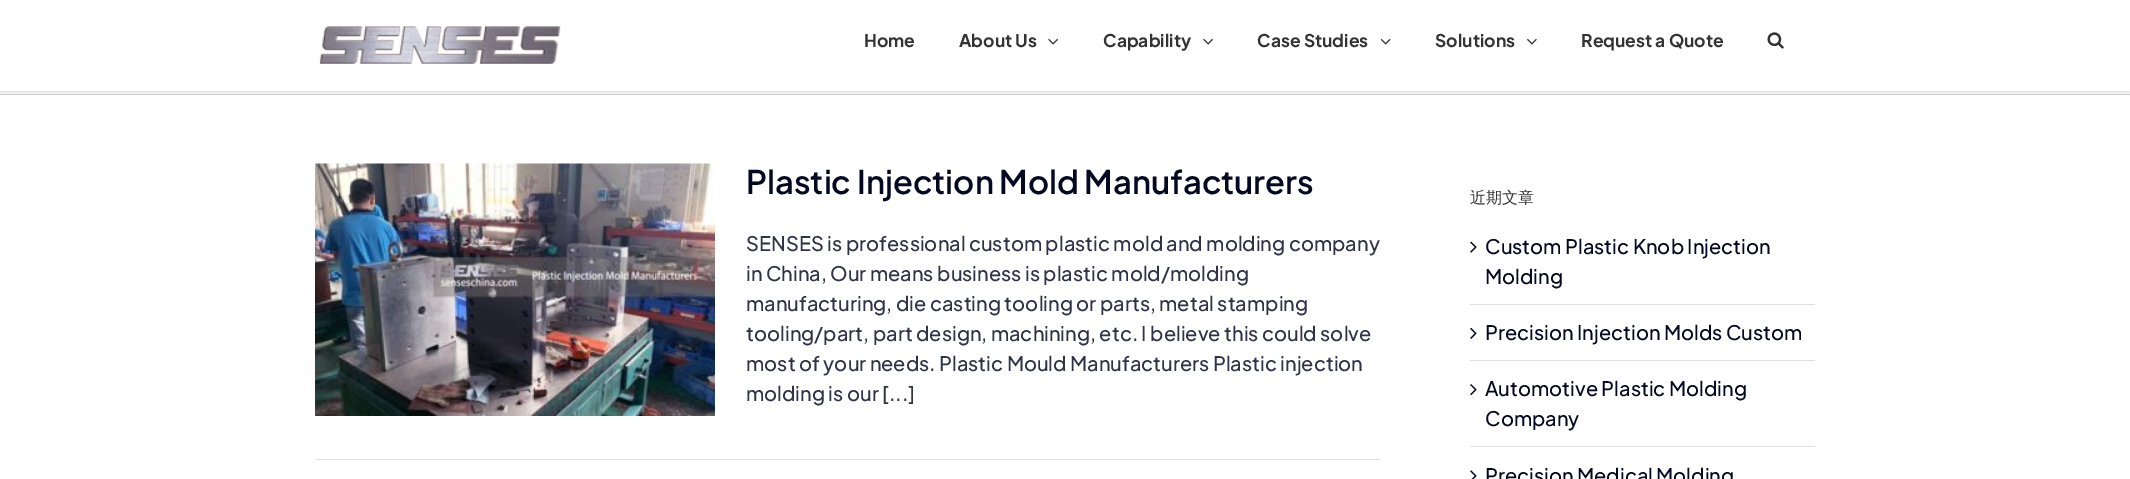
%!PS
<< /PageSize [2130 479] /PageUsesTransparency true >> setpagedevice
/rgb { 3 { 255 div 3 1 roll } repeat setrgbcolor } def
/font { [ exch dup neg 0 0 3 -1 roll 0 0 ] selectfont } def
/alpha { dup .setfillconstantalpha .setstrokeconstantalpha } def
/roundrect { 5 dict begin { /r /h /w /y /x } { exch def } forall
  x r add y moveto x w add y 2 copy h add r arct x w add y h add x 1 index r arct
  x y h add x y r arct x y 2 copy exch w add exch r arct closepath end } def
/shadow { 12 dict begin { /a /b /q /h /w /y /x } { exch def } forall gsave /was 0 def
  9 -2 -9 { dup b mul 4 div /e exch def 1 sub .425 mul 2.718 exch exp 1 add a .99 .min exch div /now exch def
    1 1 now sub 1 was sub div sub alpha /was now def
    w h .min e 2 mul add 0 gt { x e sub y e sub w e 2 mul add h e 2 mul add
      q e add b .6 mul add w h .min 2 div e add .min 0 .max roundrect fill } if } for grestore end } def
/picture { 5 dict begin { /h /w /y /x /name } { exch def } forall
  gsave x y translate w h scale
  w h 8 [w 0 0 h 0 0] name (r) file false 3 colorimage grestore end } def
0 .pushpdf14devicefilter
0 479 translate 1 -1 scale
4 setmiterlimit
255 255 255 rgb
0 0 2130 479 rectfill
210 211 212 rgb
0 94 2130 1 rectfill
0 0 0 rgb
0 1 2130 92 0 2 0.12 shadow
255 255 255 rgb
0 0 2130 91 rectfill
(img/1.rgb) 319 26 242 38 picture
(img/2.rgb) 1048 38 10 7 picture
(img/2.rgb) 1203 38 10 7 picture
(img/3.rgb) 1380 38 11 7 picture
(img/4.rgb) 1527 38 10 7 picture
(img/5.rgb) 1767 32 17 17 picture
(img/6.rgb) 315 163 400 253 picture
224 222 222 rgb
315 459 1065 1 rectfill
1470 304 345 1 rectfill
(img/7.rgb) 1470 241 7 12 picture
1470 360 345 1 rectfill
(img/8.rgb) 1470 327 7 12 picture
1470 446 345 1 rectfill
(img/9.rgb) 1470 384 7 12 picture
(img/10.rgb) 1470 470 7 9 picture
/PlusJakartaSans-Bold 17.5 font
51 51 51 rgb
[
  [(Home) 864 47]
  [(About Us) 959 47]
  [(Capability) 1103 47]
  [(Case Studies) 1257 47]
  [(Solutions) 1435 47]
  [(Request a Quote) 1581 47]
] { aload pop moveto show } forall
/PlusJakartaSans-SemiBold 32.5 font
4 9 34 rgb
746 194 moveto (Plastic Injection Mold Manufacturers) show
/PlusJakartaSans-Medium 20 font
47 51 72 rgb
[
  [(SENSES is professional custom plastic mold and molding company) 746 251]
  [(in China, Our means business is plastic mold/molding) 746 281]
  [(manufacturing, die casting tooling or parts, metal stamping) 746 311]
  [(tooling/part, part design, machining, etc. I believe this could solve) 746 341]
  [(most of your needs. Plastic Mould Manufacturers Plastic injection) 746 371]
  [(molding is our [...]) 746 401]
] { aload pop moveto show } forall
/WenQuanYiZenHei-Medium 16 font
51 51 51 rgb
1470 203 moveto (近期文章) show
/PlusJakartaSans-Medium 20 font
4 9 34 rgb
[
  [(Custom Plastic Knob Injection) 1485 254]
  [(Molding) 1485 284]
  [(Precision Injection Molds Custom) 1485 340]
  [(Automotive Plastic Molding) 1485 396]
  [(Company) 1485 426]
  [(Precision Medical Molding) 1485 483]
] { aload pop moveto show } forall
.poppdf14devicefilter showpage
